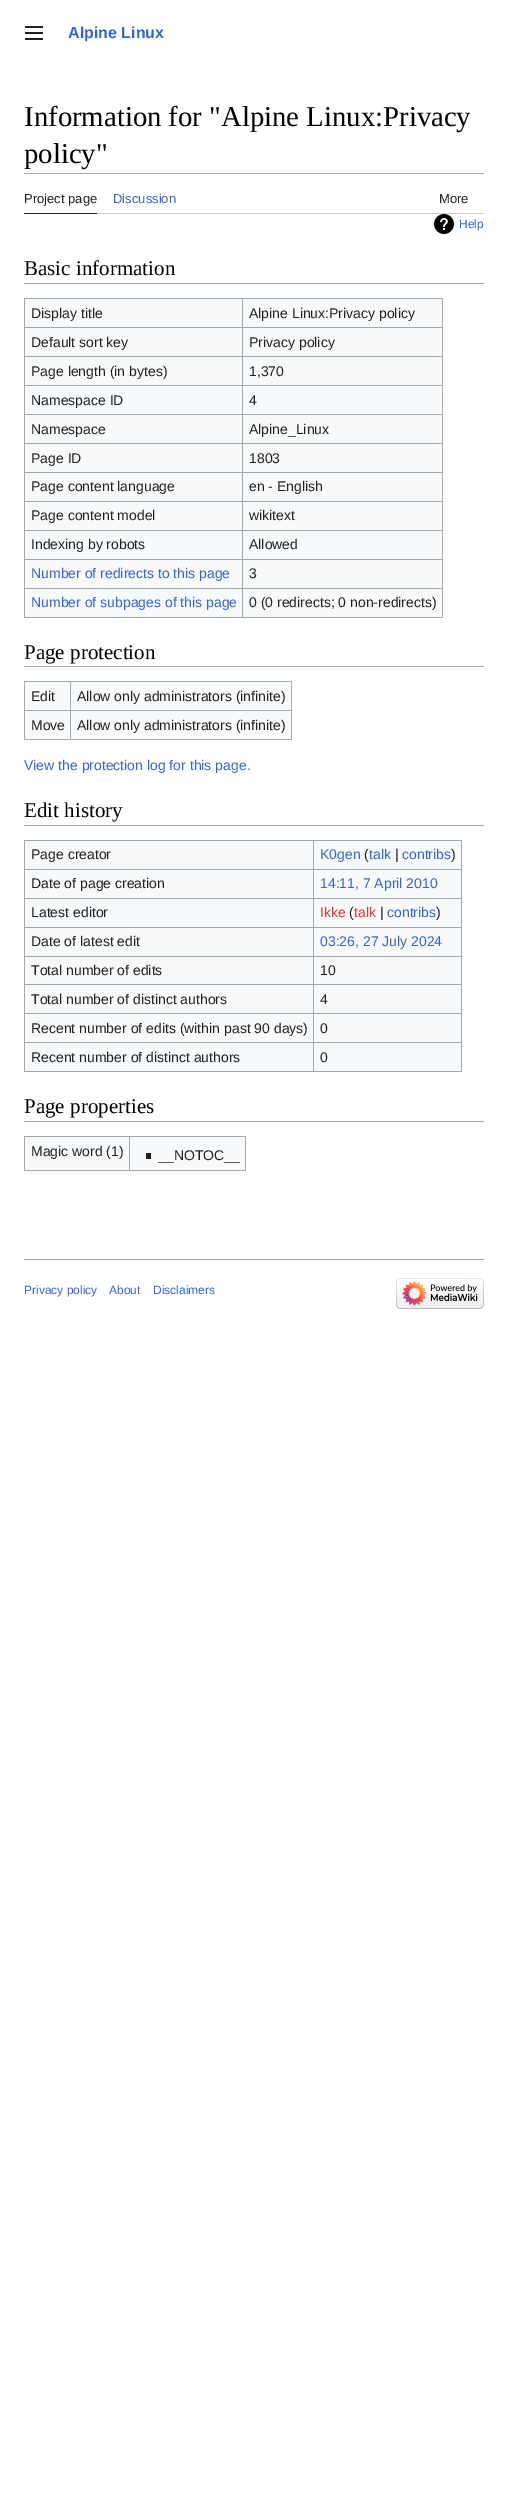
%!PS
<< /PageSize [508 2519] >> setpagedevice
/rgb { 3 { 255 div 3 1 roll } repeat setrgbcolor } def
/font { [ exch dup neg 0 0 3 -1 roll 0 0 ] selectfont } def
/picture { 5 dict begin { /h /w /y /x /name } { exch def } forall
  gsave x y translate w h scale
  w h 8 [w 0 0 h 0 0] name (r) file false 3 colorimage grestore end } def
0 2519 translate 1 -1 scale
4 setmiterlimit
255 255 255 rgb
0 0 508 2519 rectfill
(img/1.rgb) 25 26 18 14 picture
[
  [24 173 460 1 162 169 177]
  [97 213 387 1 200 204 209]
  [24 213 73 1 32 33 34]
] { aload pop rgb rectfill } forall
(img/2.rgb) 434 214 20 20 picture
[
  [24 283 460 1 162 169 177]
  [25 299 417 318 248 249 250]
  [24 298 419 1 162 169 177]
  [442 298 1 320 162 169 177]
  [24 617 419 1 162 169 177]
  [24 298 1 320 162 169 177]
  [242 327 201 1 162 169 177]
  [242 356 201 1 162 169 177]
  [242 385 201 1 162 169 177]
  [242 414 201 1 162 169 177]
  [242 443 201 1 162 169 177]
  [242 472 201 1 162 169 177]
  [242 501 201 1 162 169 177]
  [242 530 201 1 162 169 177]
  [242 559 201 1 162 169 177]
  [242 588 201 1 162 169 177]
  [242 588 1 30 162 169 177]
  [24 588 219 1 162 169 177]
  [242 559 1 30 162 169 177]
  [24 559 219 1 162 169 177]
  [242 530 1 30 162 169 177]
  [24 530 219 1 162 169 177]
  [242 501 1 30 162 169 177]
  [24 501 219 1 162 169 177]
  [242 472 1 30 162 169 177]
  [24 472 219 1 162 169 177]
  [242 443 1 30 162 169 177]
  [24 443 219 1 162 169 177]
  [242 414 1 30 162 169 177]
  [24 414 219 1 162 169 177]
  [242 385 1 30 162 169 177]
  [24 385 219 1 162 169 177]
  [242 356 1 30 162 169 177]
  [24 356 219 1 162 169 177]
  [242 327 1 30 162 169 177]
  [24 327 219 1 162 169 177]
  [242 298 1 30 162 169 177]
  [24 666 460 1 162 169 177]
  [25 682 266 57 248 249 250]
  [24 681 268 1 162 169 177]
  [291 681 1 59 162 169 177]
  [24 739 268 1 162 169 177]
  [24 681 1 59 162 169 177]
  [70 710 222 1 162 169 177]
  [70 710 1 30 162 169 177]
  [24 710 47 1 162 169 177]
  [70 681 1 30 162 169 177]
  [24 825 460 1 162 169 177]
  [25 841 436 230 248 249 250]
  [24 840 438 1 162 169 177]
  [461 840 1 232 162 169 177]
  [24 1071 438 1 162 169 177]
  [24 840 1 232 162 169 177]
  [313 869 149 1 162 169 177]
  [313 898 149 1 162 169 177]
  [313 927 149 1 162 169 177]
  [313 956 149 1 162 169 177]
  [313 984 149 1 162 169 177]
  [313 1013 149 1 162 169 177]
  [313 1042 149 1 162 169 177]
  [313 1042 1 30 162 169 177]
  [24 1042 290 1 162 169 177]
  [313 1013 1 30 162 169 177]
  [24 1013 290 1 162 169 177]
  [313 984 1 30 162 169 177]
  [24 984 290 1 162 169 177]
  [313 956 1 29 162 169 177]
  [24 956 290 1 162 169 177]
  [313 927 1 30 162 169 177]
  [24 927 290 1 162 169 177]
  [313 898 1 30 162 169 177]
  [24 898 290 1 162 169 177]
  [313 869 1 30 162 169 177]
  [24 869 290 1 162 169 177]
  [313 840 1 30 162 169 177]
  [24 1121 460 1 162 169 177]
  [25 1137 220 33 248 249 250]
  [24 1136 222 1 162 169 177]
  [245 1136 1 35 162 169 177]
  [24 1170 222 1 162 169 177]
  [24 1136 1 35 162 169 177]
  [129 1136 1 35 162 169 177]
  [146 1153 5 6 32 33 34]
  [24 1259 460 1 162 169 177]
] { aload pop rgb rectfill } forall
(img/3.rgb) 396 1278 88 31 picture
/LiberationSans-Bold 16 font
51 102 204 rgb
68 38 moveto (Alpine Linux) show
/LiberationSerif-Regular 28.75 font
0 0 0 rgb
24 126 moveto (Information for "Alpine Linux:Privacy) show
24 163 moveto (policy") show
/LiberationSans-Regular 13 font
32 33 34 rgb
24 203 moveto (Project page) show
51 102 204 rgb
113 203 moveto (Discussion) show
32 33 34 rgb
439 203 moveto (More) show
/LiberationSans-Regular 12 font
51 102 204 rgb
459 228 moveto (Help) show
/LiberationSerif-Regular 21 font
0 0 0 rgb
24 275 moveto (Basic information) show
/LiberationSans-Regular 14 font
32 33 34 rgb
[
  [(Display title) 31 318]
  [(Alpine Linux:Privacy policy) 249 318]
  [(Default sort key) 31 347]
  [(Privacy policy) 249 347]
  [(Page length \(in bytes\)) 31 376]
  [(1,370) 249 376]
  [(Namespace ID) 31 405]
  [(4) 249 405]
  [(Namespace) 31 434]
  [(Alpine_Linux) 249 434]
  [(Page ID) 31 463]
  [(1803) 249 463]
  [(Page content language) 31 491]
  [(en - English) 249 491]
  [(Page content model) 31 520]
  [(wikitext) 249 520]
  [(Indexing by robots) 31 549]
  [(Allowed) 249 549]
] { aload pop moveto show } forall
51 102 204 rgb
31 578 moveto (Number of redirects to this page) show
32 33 34 rgb
249 578 moveto (3) show
51 102 204 rgb
31 607 moveto (Number of subpages of this page) show
32 33 34 rgb
249 607 moveto (0 \(0 redirects; 0 non-redirects\)) show
/LiberationSerif-Regular 21 font
0 0 0 rgb
24 659 moveto (Page protection) show
/LiberationSans-Regular 14 font
32 33 34 rgb
[
  [(Edit) 31 701]
  [(Allow only administrators \(infinite\)) 77 701]
  [(Move) 31 730]
  [(Allow only administrators \(infinite\)) 77 730]
] { aload pop moveto show } forall
51 102 204 rgb
24 770 moveto (View the protection log for this page.) show
/LiberationSerif-Regular 21 font
0 0 0 rgb
24 817 moveto (Edit history) show
/LiberationSans-Regular 14 font
32 33 34 rgb
31 859 moveto (Page creator) show
51 102 204 rgb
320 859 moveto (K0gen) show
32 33 34 rgb
364 859 moveto (\() show
51 102 204 rgb
369 859 moveto (talk) show
32 33 34 rgb
395 859 moveto (|) show
51 102 204 rgb
402 859 moveto (contribs) show
32 33 34 rgb
451 859 moveto (\)) show
31 888 moveto (Date of page creation) show
51 102 204 rgb
320 888 moveto (14:11, 7 April 2010) show
32 33 34 rgb
31 917 moveto (Latest editor) show
221 51 51 rgb
320 917 moveto (Ikke) show
32 33 34 rgb
349 917 moveto (\() show
221 51 51 rgb
354 917 moveto (talk) show
32 33 34 rgb
380 917 moveto (|) show
51 102 204 rgb
387 917 moveto (contribs) show
32 33 34 rgb
436 917 moveto (\)) show
31 946 moveto (Date of latest edit) show
51 102 204 rgb
320 946 moveto (03:26, 27 July 2024) show
32 33 34 rgb
[
  [(Total number of edits) 31 975]
  [(10) 320 975]
  [(Total number of distinct authors) 31 1004]
  [(4) 320 1004]
  [(Recent number of edits \(within past 90 days\)) 31 1033]
  [(0) 320 1033]
  [(Recent number of distinct authors) 31 1062]
  [(0) 320 1062]
] { aload pop moveto show } forall
/LiberationSerif-Regular 21 font
0 0 0 rgb
24 1113 moveto (Page properties) show
/LiberationSans-Regular 14 font
32 33 34 rgb
31 1156 moveto (Magic word \(1\)) show
158 1160 moveto (__NOTOC__) show
/LiberationSans-Regular 12 font
51 102 204 rgb
[
  [(Privacy policy) 24 1294]
  [(About) 109 1294]
  [(Disclaimers) 153 1294]
] { aload pop moveto show } forall
showpage
